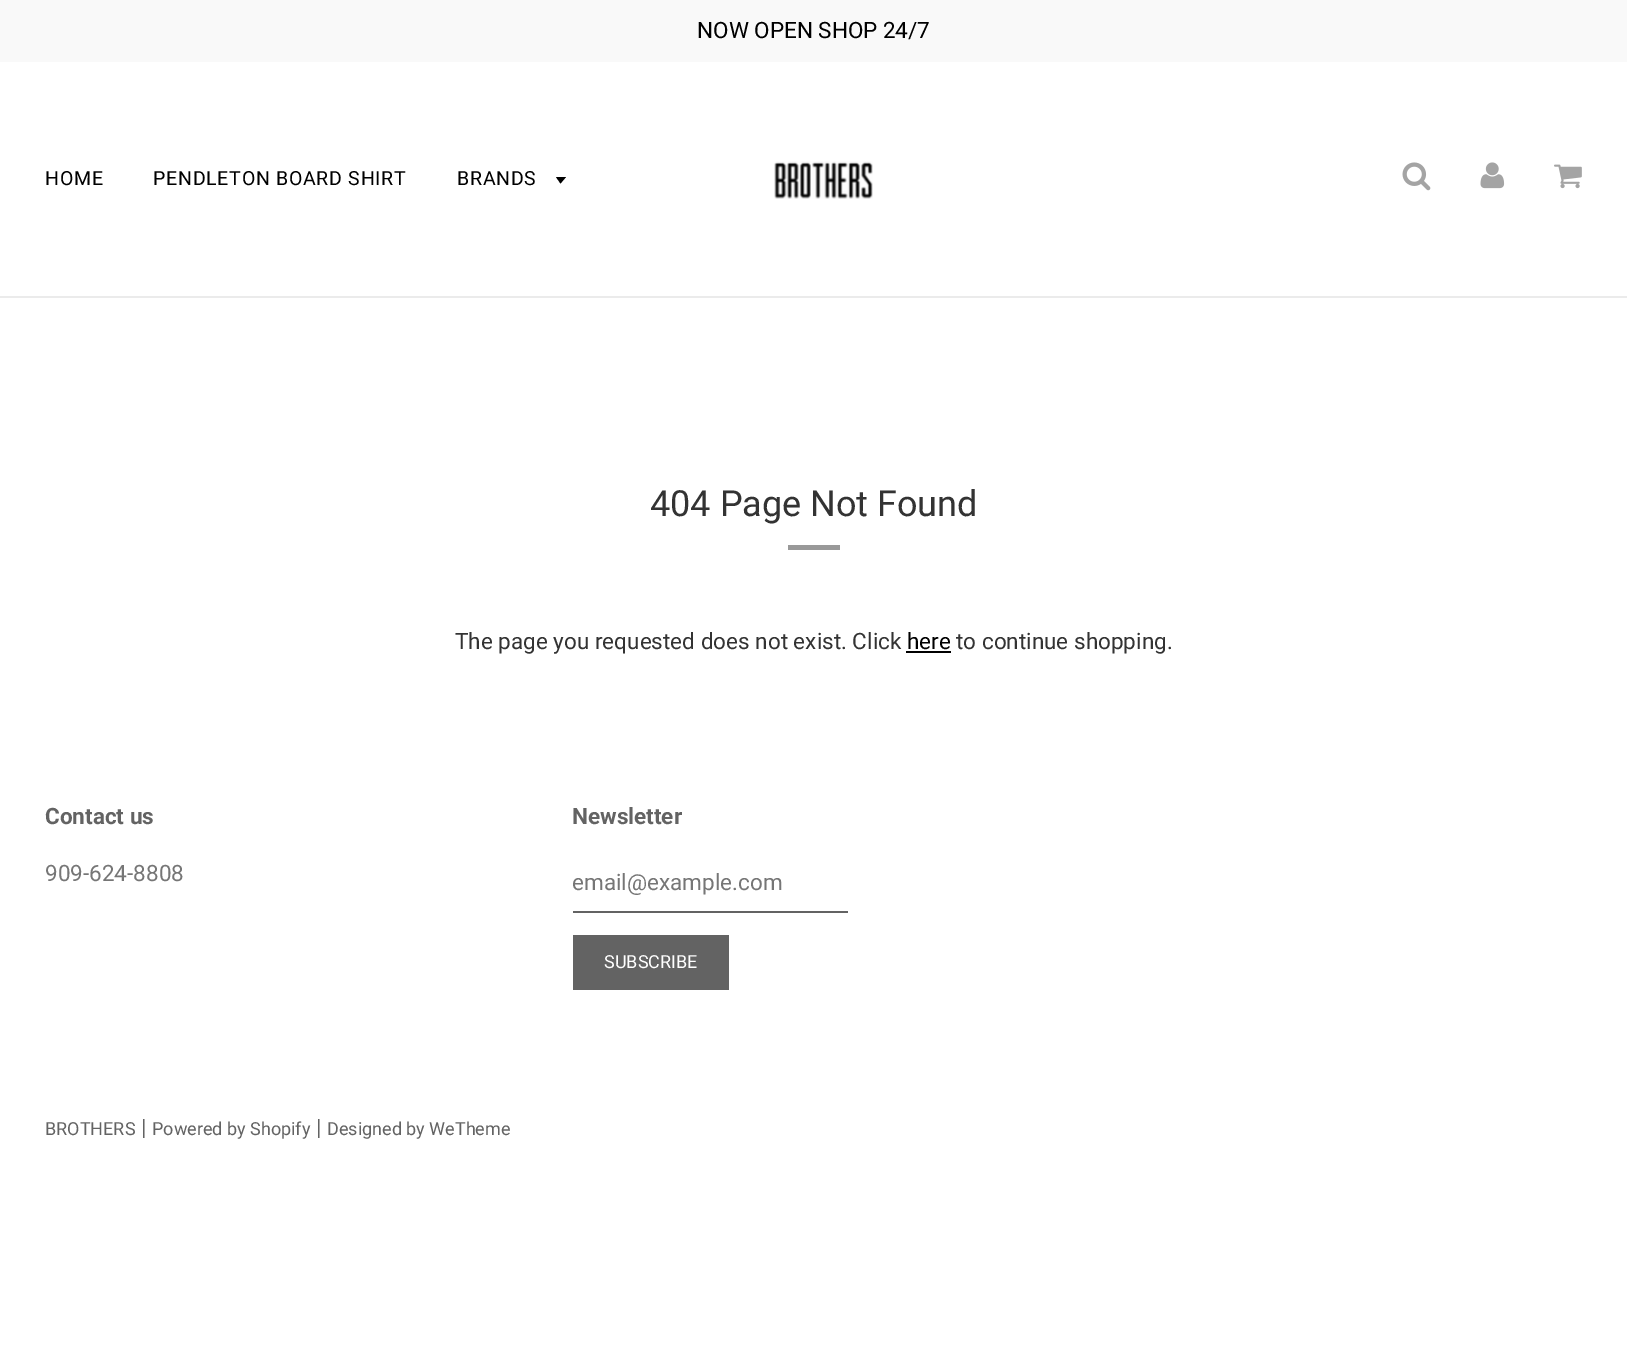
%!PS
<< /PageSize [1627 1352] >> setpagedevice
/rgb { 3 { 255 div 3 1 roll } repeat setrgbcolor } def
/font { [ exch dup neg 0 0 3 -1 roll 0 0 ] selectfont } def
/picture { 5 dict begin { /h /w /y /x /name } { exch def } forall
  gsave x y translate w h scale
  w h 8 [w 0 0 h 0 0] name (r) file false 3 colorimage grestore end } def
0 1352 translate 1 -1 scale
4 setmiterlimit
255 255 255 rgb
0 0 1627 1352 rectfill
249 249 249 rgb
0 0 1627 62 rectfill
235 235 235 rgb
0 296 1627 2 rectfill
0 0 0 rgb
556 177 moveto 560.5 183.5 lineto 566 177 lineto closepath fill
(img/1.rgb) 774 161 99 38 picture
(img/2.rgb) 1402 162 29 29 picture
(img/3.rgb) 1480 162 25 27 picture
(img/4.rgb) 1554 164 28 25 picture
[
  [788 545 52 5 153 153 153]
  [906 651 45 2 0 0 0]
  [573 911 275 2 99 99 99]
  [573 935 156 55 99 99 99]
] { aload pop rgb rectfill } forall
/Roboto-Regular 22.5 font
0 0 0 rgb
697 38 moveto (NOW OPEN SHOP 24/7) show
/Roboto-Regular 19.5 font
45 185 moveto 0.75 0 (HOME) ashow
153 185 moveto 0.75 0 (PENDLETON BOARD SHIRT) ashow
457 185 moveto 0.75 0 (BRANDS) ashow
/Roboto-Regular 36 font
51 51 51 rgb
650 516 moveto (404 Page Not Found) show
/Roboto-Regular 22.5 font
455 649 moveto (The page you requested does not exist. Click) show
0 0 0 rgb
907 649 moveto (here) show
51 51 51 rgb
956 649 moveto (to continue shopping.) show
/Roboto-Bold 22.5 font
99 99 99 rgb
45 824 moveto (Contact us) show
/Roboto-Regular 22.5 font
118 118 118 rgb
45 881 moveto (909-624-8808) show
/Roboto-Bold 22.5 font
99 99 99 rgb
572 824 moveto (Newsletter) show
/Roboto-Regular 22.5 font
118 118 118 rgb
572 890 moveto (email@example.com) show
/Roboto-Regular 18 font
255 255 255 rgb
604 968 moveto (SUBSCRIBE) show
99 99 99 rgb
45 1135 moveto (BROTHERS) show
/Roboto-Regular 22.5 font
141 1135 moveto (|) show
/Roboto-Regular 18 font
152 1135 moveto (Powered by Shopify) show
/Roboto-Regular 22.5 font
316 1135 moveto (|) show
/Roboto-Regular 18 font
327 1135 moveto (Designed by WeTheme) show
showpage
